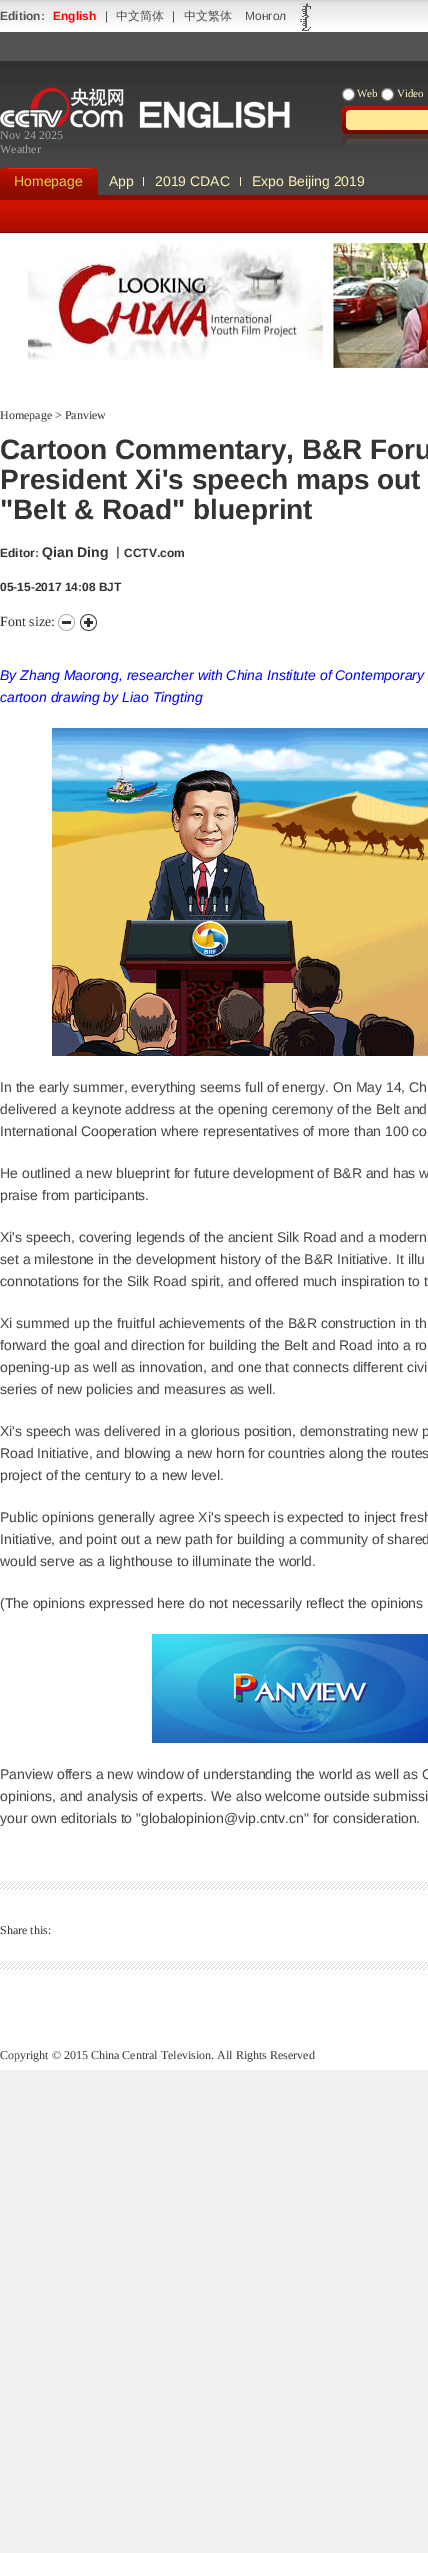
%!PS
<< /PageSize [428 2553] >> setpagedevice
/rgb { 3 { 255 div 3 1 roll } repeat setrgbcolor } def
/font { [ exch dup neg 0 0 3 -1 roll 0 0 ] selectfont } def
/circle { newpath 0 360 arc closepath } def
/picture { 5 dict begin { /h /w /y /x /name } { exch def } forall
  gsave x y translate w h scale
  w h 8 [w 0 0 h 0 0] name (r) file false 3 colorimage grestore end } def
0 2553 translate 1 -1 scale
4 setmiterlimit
241 241 241 rgb
0 0 428 2553 rectfill
(img/1.rgb) 0 0 428 32 picture
(img/2.rgb) 300 3 11 28 picture
255 255 255 rgb
0 233 428 1837 rectfill
(img/3.rgb) 0 61 428 172 picture
84 84 84 rgb
0 32 428 29 rectfill
255 255 255 rgb
348.5 94.5 6 circle gsave fill grestore
118 118 118 rgb
stroke
255 255 255 rgb
387.5 94.5 6 circle gsave fill grestore
118 118 118 rgb
stroke
(img/4.rgb) 342 106 86 44 picture
(img/5.rgb) 0 87 290 41 picture
(img/6.rgb) 0 168 98 27 picture
(img/7.rgb) 0 168 15 8 picture
254 241 189 rgb
143 177 1 9 rectfill
240 177 1 9 rectfill
(img/8.rgb) 28 243 295 118 picture
(img/9.rgb) 333 243 95 125 picture
(img/10.rgb) 0 1882 428 8 picture
(img/11.rgb) 58 614 17 17 picture
(img/12.rgb) 80 614 17 17 picture
(img/13.rgb) 52 728 376 328 picture
(img/14.rgb) 152 1634 276 109 picture
(img/10.rgb) 0 1962 428 8 picture
/LiberationSans-Bold 12 font
88 82 82 rgb
0 20 moveto (Edition:) show
255 0 0 rgb
53 20 moveto (English) show
/LiberationSans-Regular 12 font
88 82 82 rgb
105 20 moveto (|) show
/WenQuanYiZenHei-Medium 12 font
116 20 moveto (中文简体) show
/LiberationSans-Regular 12 font
172 20 moveto (|) show
/WenQuanYiZenHei-Medium 12 font
184 20 moveto (中文繁体) show
/LiberationSans-Regular 12 font
245 20 moveto (Монгол) show
/LiberationSerif-Regular 11 font
254 241 189 rgb
357 97 moveto (Web) show
397 97 moveto (Video) show
/LiberationSerif-Regular 12 font
164 164 164 rgb
0 139 moveto (Nov 24 2025) show
0 153 moveto (Weather) show
/LiberationSans-Regular 14 font
229 208 81 rgb
14 186 moveto (Homepage) show
254 241 189 rgb
[
  [(App) 109 186]
  [(2019 CDAC) 155 186]
  [(Expo Beijing 2019) 252 186]
] { aload pop moveto show } forall
/LiberationSerif-Regular 12 font
51 51 51 rgb
0 419 moveto (Homepage > Panview) show
/LiberationSans-Bold 28 font
[
  [(Cartoon Commentary, B&R Foru) 0 459]
  [(President Xi's speech maps out) 0 489]
  [("Belt & Road" blueprint) 0 519]
] { aload pop moveto show } forall
/LiberationSans-Bold 12 font
0 557 moveto (Editor:) show
/LiberationSans-Bold 14 font
42 557 moveto (Qian Ding) show
/WenQuanYiZenHei-Bold 12 font
112 557 moveto (丨) show
/LiberationSans-Bold 12 font
124 557 moveto (CCTV.com) show
0 591 moveto (05-15-2017 14:08 BJT) show
/LiberationSerif-Regular 14 font
0 626 moveto (Font size:) show
/LiberationSans-Italic 14 font
0 0 255 rgb
0 680 moveto (By Zhang Maorong, researcher with China Institute of Contemporary) show
0 702 moveto (cartoon drawing by Liao Tingting) show
/LiberationSans-Regular 14 font
68 68 68 rgb
[
  [(In the early summer, everything seems full of energy. On May 14, Ch) 0 1092]
  [(delivered a keynote address at the opening ceremony of the Belt and) 0 1114]
  [(International Cooperation where representatives of more than 100 co) 0 1136]
  [(He outlined a new blueprint for future development of B&R and has w) 0 1178]
  [(praise from participants.) 0 1200]
  [(Xi's speech, covering legends of the ancient Silk Road and a modern) 0 1242]
  [(set a milestone in the development history of the B&R Initiative. It illu) 0 1264]
  [(connotations for the Silk Road spirit, and offered much inspiration to t) 0 1286]
  [(Xi summed up the fruitful achievements of the B&R construction in th) 0 1328]
  [(forward the goal and direction for building the Belt and Road into a ro) 0 1350]
  [(opening-up as well as innovation, and one that connects different civi) 0 1372]
  [(series of new policies and measures as well.) 0 1394]
  [(Xi's speech was delivered in a glorious position, demonstrating new p) 0 1436]
  [(Road Initiative, and blowing a new horn for countries along the routes) 0 1458]
  [(project of the century to a new level.) 0 1480]
  [(Public opinions generally agree Xi's speech is expected to inject fresh) 0 1522]
  [(Initiative, and point out a new path for building a community of shared) 0 1544]
  [(would serve as a lighthouse to illuminate the world.) 0 1566]
  [(\(The opinions expressed here do not necessarily reflect the opinions) 0 1608]
  [(Panview offers a new window of understanding the world as well as C) 0 1779]
  [(opinions, and analysis of experts. We also welcome outside submissi) 0 1801]
  [(your own editorials to "globalopinion@vip.cntv.cn" for consideration.) 0 1823]
] { aload pop moveto show } forall
/LiberationSerif-Regular 12 font
51 51 51 rgb
0 1934 moveto (Share this:) show
58 58 51 rgb
0 2059 moveto (Copyright © 2015 China Central Television. All Rights Reserved) show
showpage
